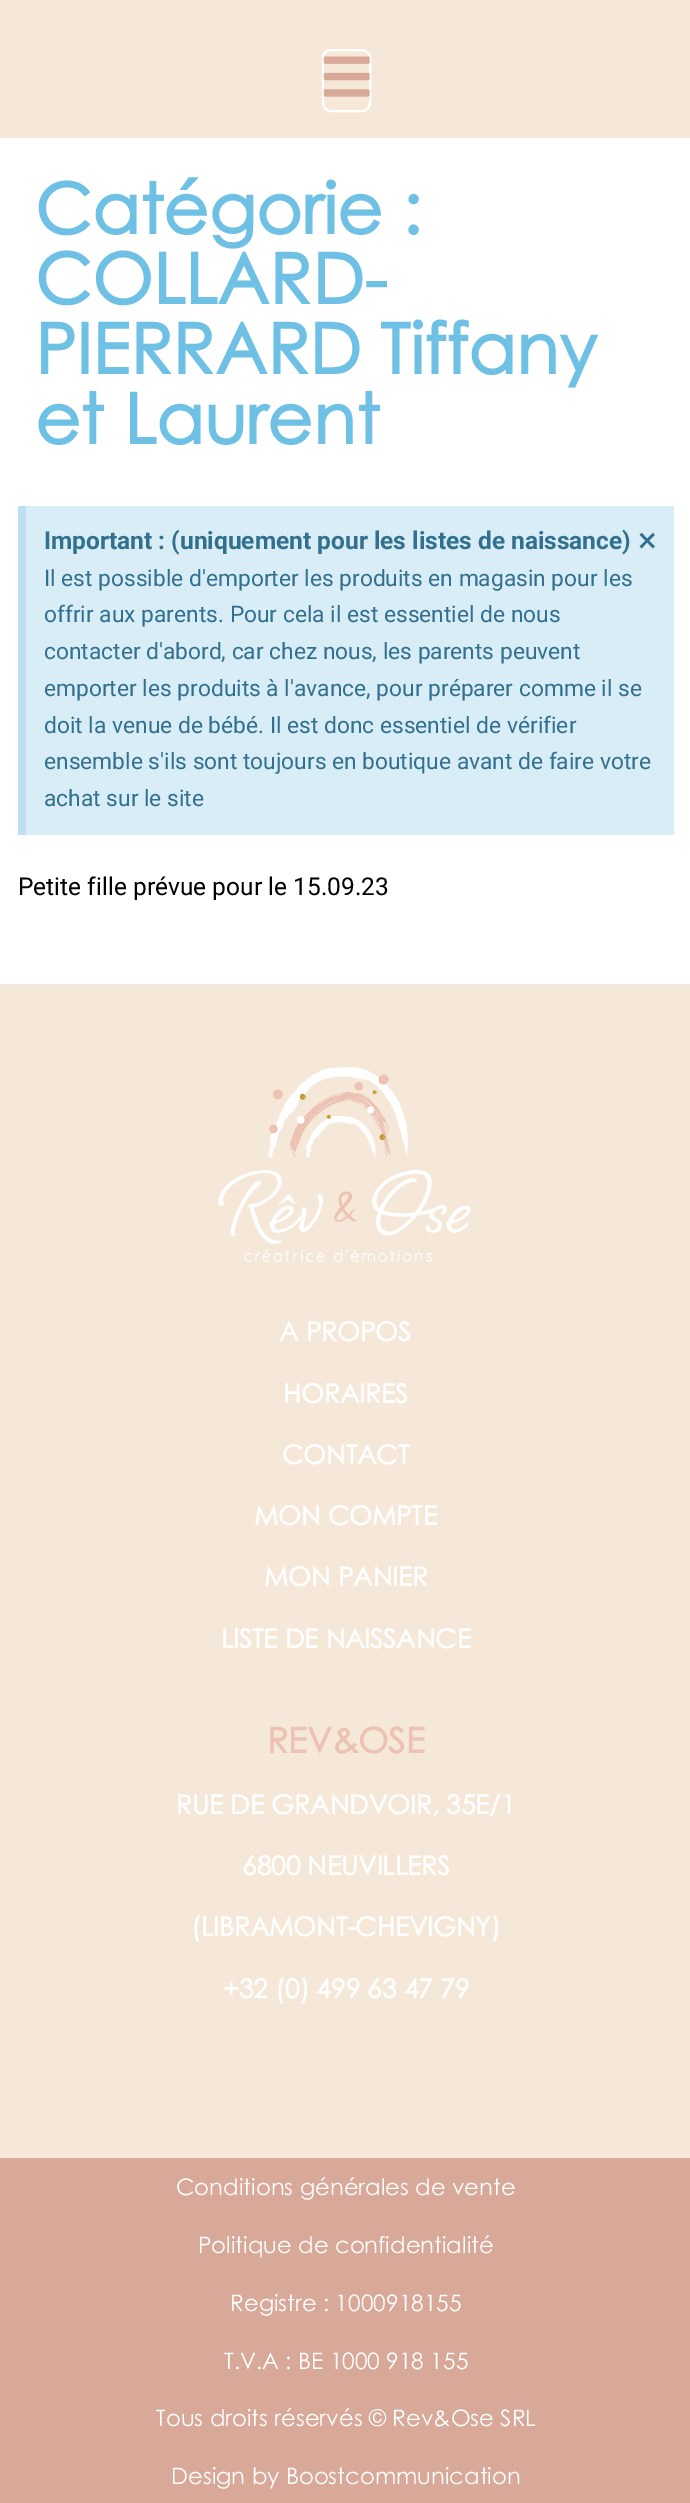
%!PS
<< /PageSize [690 2503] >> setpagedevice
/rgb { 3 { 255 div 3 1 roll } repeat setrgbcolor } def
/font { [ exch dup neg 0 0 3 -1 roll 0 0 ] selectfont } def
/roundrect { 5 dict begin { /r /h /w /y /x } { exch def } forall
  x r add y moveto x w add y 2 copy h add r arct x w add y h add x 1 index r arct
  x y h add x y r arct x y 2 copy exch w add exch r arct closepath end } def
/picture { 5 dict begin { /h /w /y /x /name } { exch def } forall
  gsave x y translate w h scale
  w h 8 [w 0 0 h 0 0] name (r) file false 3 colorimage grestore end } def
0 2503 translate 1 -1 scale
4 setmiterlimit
255 255 255 rgb
0 0 690 2503 rectfill
246 232 216 rgb
0 0 690 138 rectfill
255 255 255 rgb
2 setlinewidth
323 50 47 61 8 roundrect stroke
(img/1.rgb) 323 56 47 41 picture
[
  [26 506 648 329 217 237 247]
  [18 506 8 329 188 223 241]
  [0 984 690 1174 246 232 216]
] { aload pop rgb rectfill } forall
(img/2.rgb) 218 1067 253 195 picture
216 168 152 rgb
0 2158 690 345 rectfill
/CenturyGothic-Bold 70 font
110 193 228 rgb
[
  [(Catégorie :) 35 234]
  [(COLLARD-) 35 304]
  [(PIERRARD Tiffany) 35 374]
  [(et Laurent) 35 444]
] { aload pop moveto show } forall
/Roboto-Bold 24.5 font
49 112 143 rgb
44 549 moveto (Important : \(uniquement pour les listes de naissance\)) show
/Roboto-Regular 35 font
638 552 moveto (×) show
/Roboto-Regular 22.75 font
[
  [(Il est possible d'emporter les produits en magasin pour les) 44 586]
  [(offrir aux parents. Pour cela il est essentiel de nous) 44 622]
  [(contacter d'abord, car chez nous, les parents peuvent) 44 659]
  [(emporter les produits à l'avance, pour préparer comme il se) 44 696]
  [(doit la venue de bébé. Il est donc essentiel de vérifier) 44 733]
  [(ensemble s'ils sont toujours en boutique avant de faire votre) 44 769]
  [(achat sur le site) 44 806]
] { aload pop moveto show } forall
/Roboto-Regular 24.5 font
0 0 0 rgb
18 895 moveto (Petite fille prévue pour le 15.09.23) show
/CenturyGothic-Bold 26.25 font
255 255 255 rgb
[
  [(A PROPOS) 279 1341]
  [(HORAIRES) 283 1403]
  [(CONTACT) 282 1464]
  [(MON COMPTE) 254 1525]
  [(MON PANIER) 264 1586]
  [(LISTE DE NAISSANCE) 221 1648]
] { aload pop moveto show } forall
/CenturyGothic-Bold 35 font
235 194 180 rgb
267 1753 moveto (REV&OSE) show
/CenturyGothic-Bold 26.25 font
255 255 255 rgb
[
  [(RUE DE GRANDVOIR, 35E/1) 176 1814]
  [(6800 NEUVILLERS) 242 1875]
  [(\(LIBRAMONT-CHEVIGNY\)) 191 1936]
  [(+32 \(0\) 499 63 47 79) 223 1998]
] { aload pop moveto show } forall
/CenturyGothic-Regular 22.75 font
[
  [(Conditions générales de vente) 176 2195]
  [(Politique de confidentialité) 198 2253]
  [(Registre : 1000918155) 230 2311]
  [(T.V.A : BE 1000 918 155) 224 2369]
  [(Tous droits réservés © Rev&Ose SRL) 156 2426]
  [(Design by Boostcommunication) 171 2484]
] { aload pop moveto show } forall
showpage
